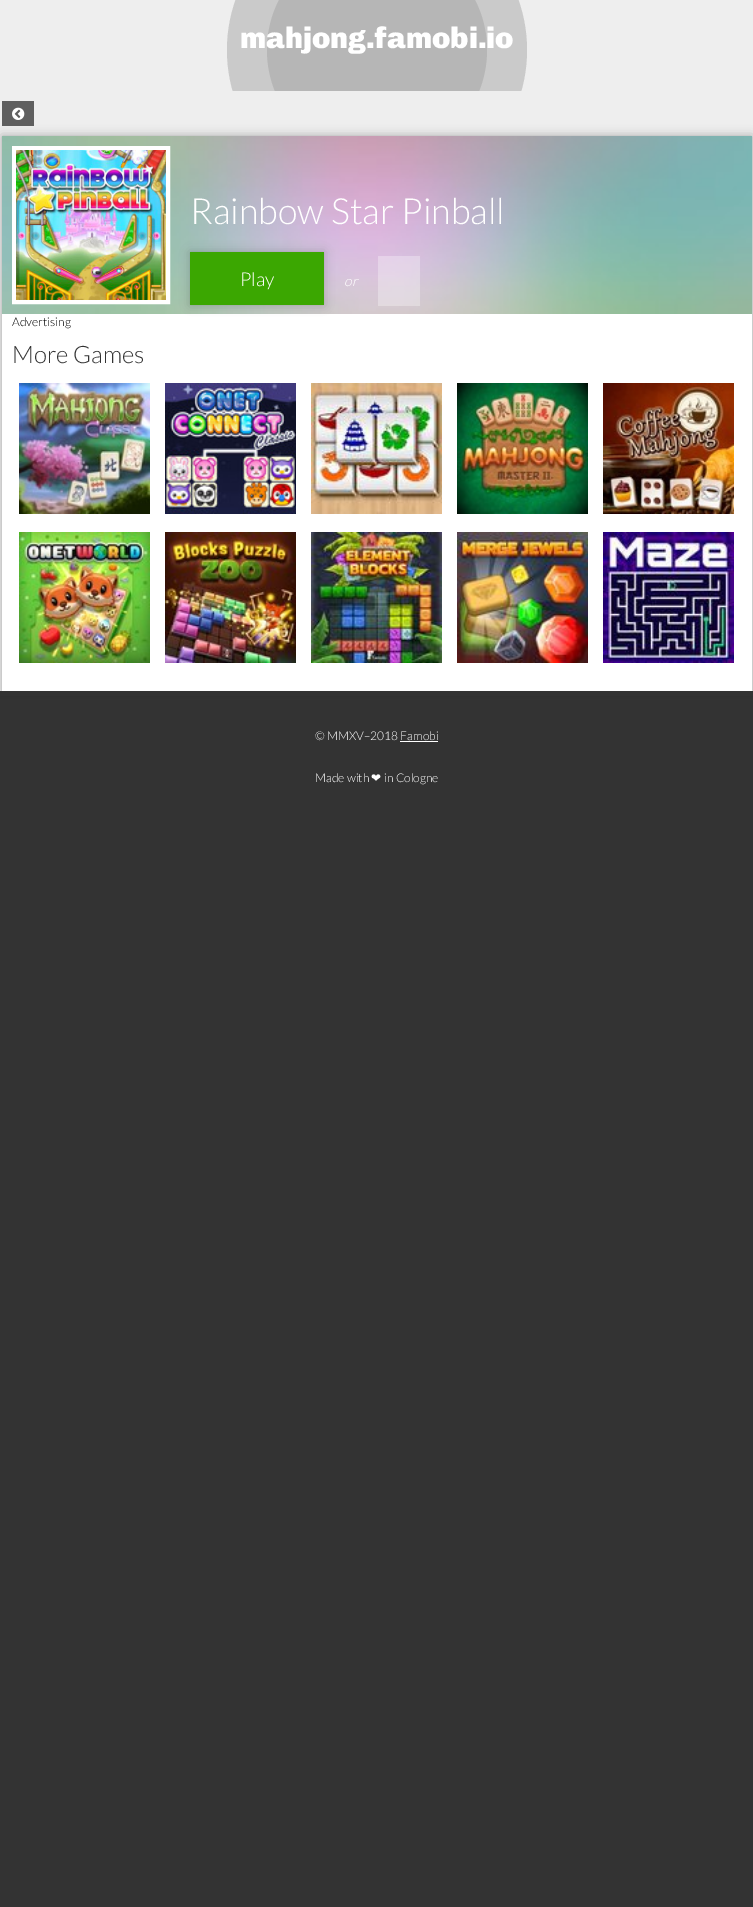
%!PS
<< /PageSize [753 1907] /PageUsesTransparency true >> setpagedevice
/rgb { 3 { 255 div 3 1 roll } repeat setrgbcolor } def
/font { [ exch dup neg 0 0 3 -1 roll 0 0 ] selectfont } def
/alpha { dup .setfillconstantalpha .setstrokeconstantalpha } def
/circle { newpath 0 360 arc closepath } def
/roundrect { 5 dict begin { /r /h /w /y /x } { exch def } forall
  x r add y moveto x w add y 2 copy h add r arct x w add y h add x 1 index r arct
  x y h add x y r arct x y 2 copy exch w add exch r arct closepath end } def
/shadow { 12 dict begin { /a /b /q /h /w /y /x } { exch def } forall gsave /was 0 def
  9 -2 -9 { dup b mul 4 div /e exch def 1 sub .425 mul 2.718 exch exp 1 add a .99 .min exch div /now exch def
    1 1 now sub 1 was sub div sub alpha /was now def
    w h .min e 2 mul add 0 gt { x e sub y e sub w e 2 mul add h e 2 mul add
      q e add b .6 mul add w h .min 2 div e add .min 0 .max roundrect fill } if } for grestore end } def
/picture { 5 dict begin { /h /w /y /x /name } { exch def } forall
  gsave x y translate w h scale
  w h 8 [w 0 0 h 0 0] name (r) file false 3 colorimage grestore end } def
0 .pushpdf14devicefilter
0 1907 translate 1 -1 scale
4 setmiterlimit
51 51 51 rgb
0 0 753 1907 rectfill
238 238 238 rgb
0 0 753 691 rectfill
0 0 0 rgb
2 136 750 555 0 5 0.3 shadow
95 95 95 rgb
2 101 32 25 rectfill
(img/1.rgb) 12 107 13 13 picture
255 255 255 rgb
2 314 750 377 rectfill
(img/2.rgb) 2 136 750 178 picture
4 setlinewidth
14 148 154 154 rectstroke
(img/3.rgb) 16 150 150 150 picture
0 0 0 rgb
190 252 134 53 0 5 0.2 shadow
59 167 1 rgb
190 252 134 53 rectfill
0.3 alpha
255 255 255 rgb
378 256 42 50 rectfill
1 alpha
(img/4.rgb) 19 383 131 131 picture
(img/5.rgb) 165 383 131 131 picture
(img/6.rgb) 311 383 131 131 picture
(img/7.rgb) 457 383 131 131 picture
(img/8.rgb) 603 383 131 131 picture
(img/9.rgb) 19 532 131 131 picture
(img/10.rgb) 165 532 131 131 picture
(img/11.rgb) 311 532 131 131 picture
(img/12.rgb) 457 532 131 131 picture
(img/13.rgb) 603 532 131 131 picture
51 51 51 rgb
0 691 753 5 rectfill
255 255 255 rgb
400 741 38 1 rectfill
/Lato-Light 36 font
190 224 moveto (Rainbow Star Pinball) show
gsave
52 0 650 91 rectclip
202 202 202 rgb
377 50 150 circle fill
182 182 182 rgb
377 50 110 circle fill
grestore
/Chivo-Black 30 font
240 48 moveto (mahjong.famobi.io) show
/Lato-Light 19 font
240 286 moveto (Play) show
/Lato-LightItalic 14 font
344 286 moveto (or) show
/Lato-Light 12 font
0 0 0 rgb
12 326 moveto (Advertising) show
/Lato-Light 24 font
51 51 51 rgb
12 363 moveto (More Games) show
/Lato-Light 12 font
255 255 255 rgb
315 740 moveto (© MMXV–2018 Famobi) show
315 782 moveto (Made with) show
/DejaVuSans-Regular 12 font
371 782 moveto (❤) show
/Lato-Light 12 font
384 782 moveto (in Cologne) show
.poppdf14devicefilter showpage
